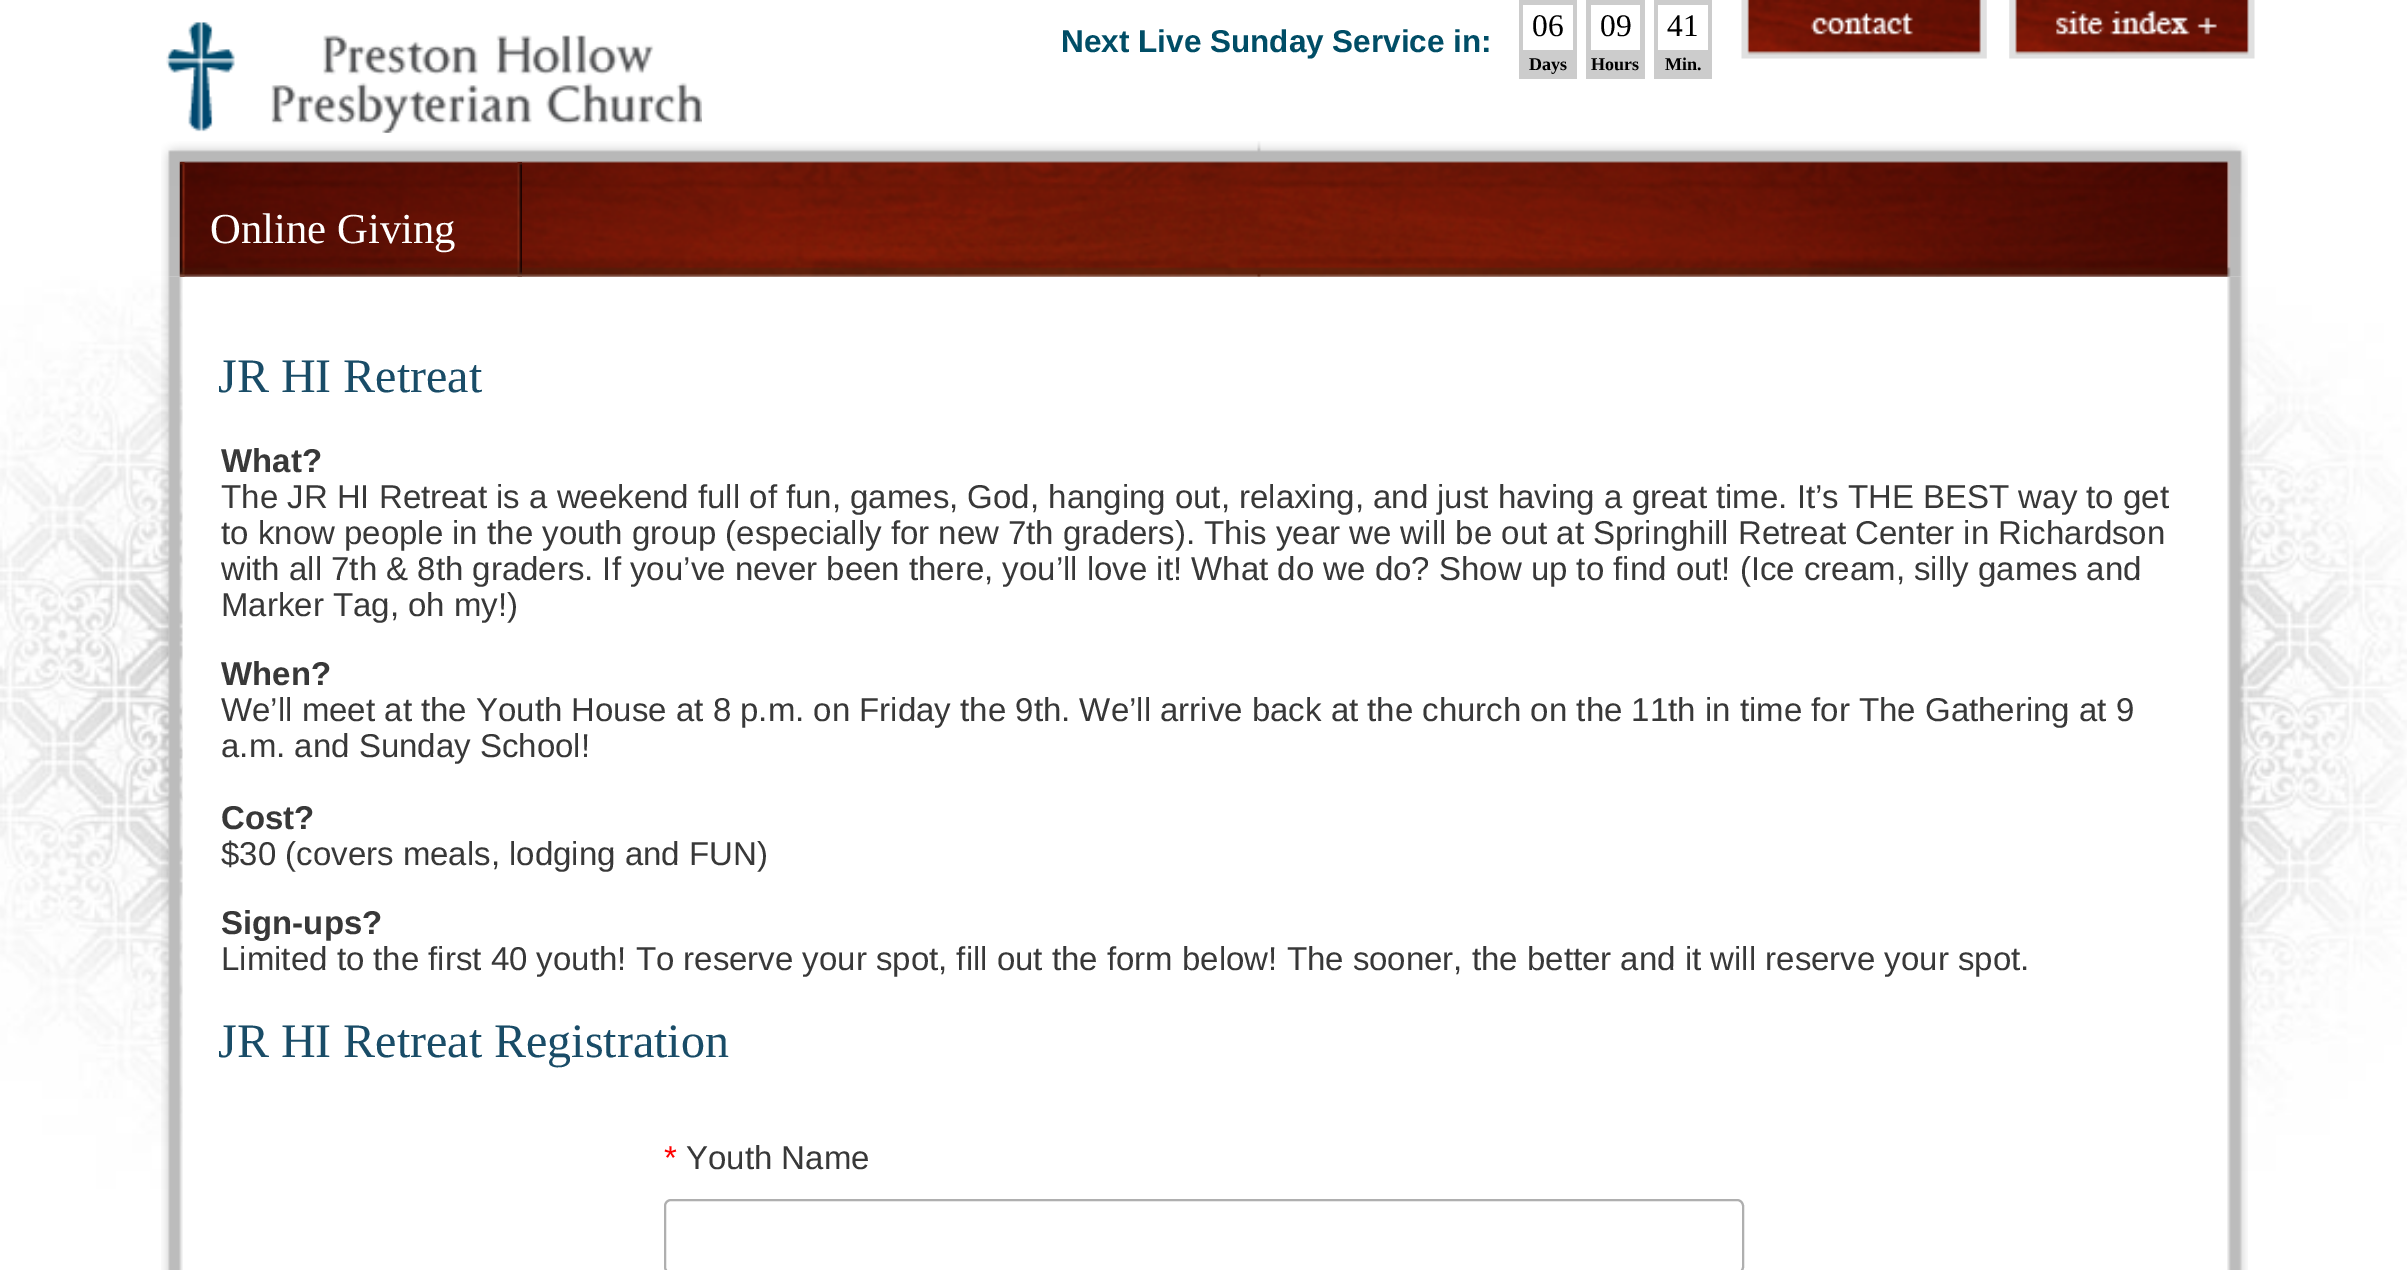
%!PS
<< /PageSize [2407 1270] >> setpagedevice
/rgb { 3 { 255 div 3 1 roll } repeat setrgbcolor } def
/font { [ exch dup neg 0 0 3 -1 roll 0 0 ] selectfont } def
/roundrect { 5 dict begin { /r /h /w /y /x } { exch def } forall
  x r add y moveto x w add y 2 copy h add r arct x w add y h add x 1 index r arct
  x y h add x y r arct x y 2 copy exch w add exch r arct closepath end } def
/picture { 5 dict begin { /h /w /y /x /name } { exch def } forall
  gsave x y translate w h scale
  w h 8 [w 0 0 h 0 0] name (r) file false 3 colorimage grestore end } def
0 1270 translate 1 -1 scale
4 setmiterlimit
255 255 255 rgb
0 0 2407 1270 rectfill
(img/1.rgb) 0 271 2407 954 picture
(img/2.rgb) 166 22 536 111 picture
[
  [1519 0 58 79 204 204 204]
  [1523 5 50 45 255 255 255]
  [1586 0 59 79 204 204 204]
  [1591 5 49 45 255 255 255]
  [1654 0 58 79 204 204 204]
  [1658 5 50 45 255 255 255]
] { aload pop rgb rectfill } forall
(img/3.rgb) 1741 0 246 59 picture
(img/4.rgb) 2009 0 246 59 picture
(img/7.rgb) 161 276 2087 994 picture
(img/5.rgb) 161 141 2087 136 picture
(img/6.rgb) 180 162 342 115 picture
175 175 175 rgb
2 setlinewidth
665 1200 1078 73 6 roundrect stroke
/LiberationSans-Bold 31.5 font
0 77 102 rgb
1061 52 moveto (Next Live Sunday Service in:) show
/LiberationSerif-Regular 31.5 font
0 0 0 rgb
1532 36 moveto (06) show
/LiberationSerif-Bold 18 font
1529 70 moveto (Days) show
/LiberationSerif-Regular 31.5 font
1600 36 moveto (09) show
/LiberationSerif-Bold 18 font
1591 70 moveto (Hours) show
/LiberationSerif-Regular 31.5 font
1667 36 moveto (41) show
/LiberationSerif-Bold 18 font
1665 70 moveto (Min.) show
/LiberationSerif-Regular 42.75 font
255 255 255 rgb
210 243 moveto (Online Giving) show
/LiberationSerif-Regular 48 font
25 76 103 rgb
218 392 moveto (JR HI Retreat) show
/LiberationSans-Bold 33 font
56 56 56 rgb
221 472 moveto (What?) show
/LiberationSans-Regular 33 font
[
  [(The JR HI Retreat is a weekend full of fun, games, God, hanging out, relaxing, and just having a great time. It’s THE BEST way to get) 221 508]
  [(to know people in the youth group \(especially for new 7th graders\). This year we will be out at Springhill Retreat Center in Richardson) 221 544]
  [(with all 7th & 8th graders. If you’ve never been there, you’ll love it! What do we do? Show up to find out! \(Ice cream, silly games and) 221 580]
  [(Marker Tag, oh my!\)) 221 616]
] { aload pop moveto show } forall
/LiberationSans-Bold 33 font
221 685 moveto (When?) show
/LiberationSans-Regular 33 font
221 721 moveto (We’ll meet at the Youth House at 8 p.m. on Friday the 9th. We’ll arrive back at the church on the 11th in time for The Gathering at 9) show
221 757 moveto (a.m. and Sunday School!) show
/LiberationSans-Bold 33 font
221 829 moveto (Cost?) show
/LiberationSans-Regular 33 font
221 865 moveto ($30 \(covers meals, lodging and FUN\)) show
/LiberationSans-Bold 33 font
221 934 moveto (Sign-ups?) show
/LiberationSans-Regular 33 font
221 970 moveto (Limited to the first 40 youth! To reserve your spot, fill out the form below! The sooner, the better and it will reserve your spot.) show
/LiberationSerif-Regular 48 font
25 76 103 rgb
218 1057 moveto (JR HI Retreat Registration) show
/LiberationSans-Regular 33 font
255 0 0 rgb
664 1169 moveto (*) show
56 56 56 rgb
686 1169 moveto (Youth Name) show
showpage
